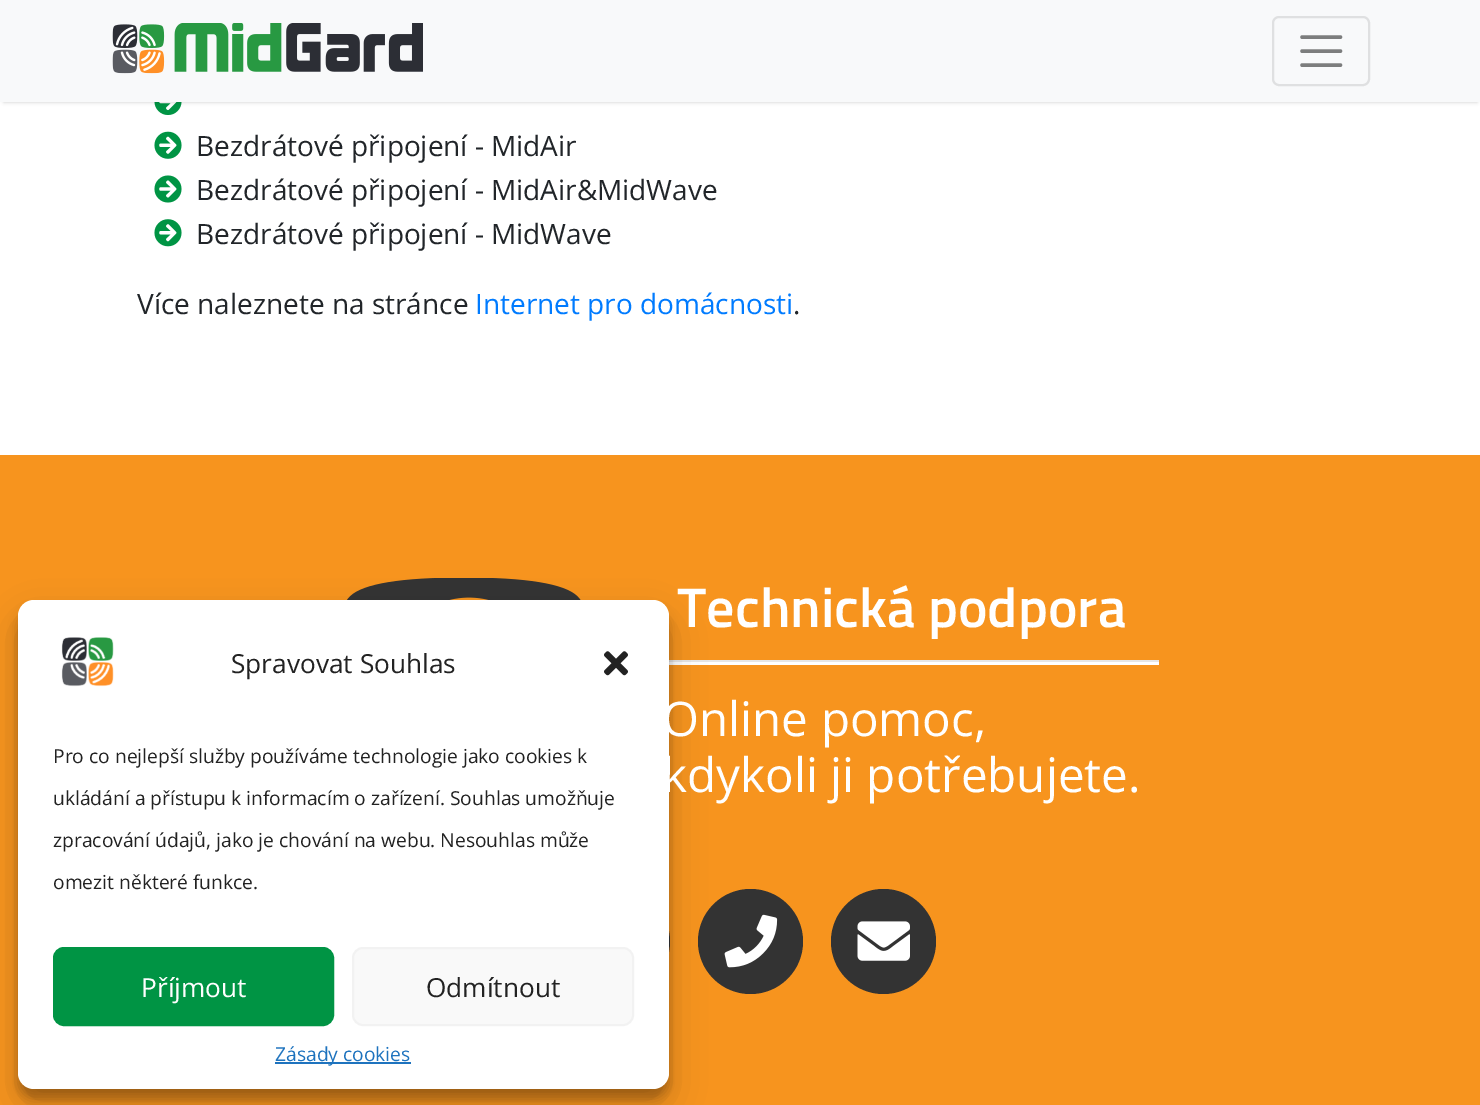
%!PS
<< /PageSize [1480 1105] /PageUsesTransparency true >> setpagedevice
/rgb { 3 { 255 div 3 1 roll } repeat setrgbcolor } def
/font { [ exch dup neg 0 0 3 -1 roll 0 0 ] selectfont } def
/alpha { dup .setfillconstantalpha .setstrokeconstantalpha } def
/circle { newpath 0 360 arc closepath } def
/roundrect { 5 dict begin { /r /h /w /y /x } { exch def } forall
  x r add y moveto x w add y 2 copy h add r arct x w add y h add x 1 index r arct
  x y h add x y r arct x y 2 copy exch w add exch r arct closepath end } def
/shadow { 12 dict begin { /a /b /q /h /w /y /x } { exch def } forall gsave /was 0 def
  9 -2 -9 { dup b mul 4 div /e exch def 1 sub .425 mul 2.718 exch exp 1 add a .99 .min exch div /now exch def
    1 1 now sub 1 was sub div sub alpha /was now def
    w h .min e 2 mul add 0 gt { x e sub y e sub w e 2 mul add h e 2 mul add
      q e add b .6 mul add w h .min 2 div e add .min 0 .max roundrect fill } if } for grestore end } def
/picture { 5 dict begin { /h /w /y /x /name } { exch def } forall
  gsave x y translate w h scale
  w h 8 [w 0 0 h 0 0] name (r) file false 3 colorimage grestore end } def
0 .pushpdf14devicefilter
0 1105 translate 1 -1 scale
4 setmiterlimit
255 255 255 rgb
0 0 1480 1105 rectfill
(img/2.rgb) 154 102 28 13 picture
0 0 0 rgb
4 7 1473 95 0 2 0.2 shadow
248 249 250 rgb
0 0 1480 102 rectfill
(img/1.rgb) 112 23 311 51 picture
223 224 225 rgb
2 setlinewidth
1273 17 96 68 6 roundrect stroke
124 125 125 rgb
3.5 setlinewidth
1 setlinecap
1302 37 moveto 1340.5 37 lineto 1302 51 moveto 1340.5 51 lineto 1302 65 moveto 1340.5 65 lineto stroke
(img/3.rgb) 154 131 28 28 picture
(img/4.rgb) 154 175 28 28 picture
(img/5.rgb) 154 219 28 28 picture
247 148 30 rgb
0 455 1480 650 rectfill
(img/8.rgb) 347 578 234 22 picture
255 255 255 rgb
662 662 497 3 rectfill
230 230 230 rgb
662 660 497 2 rectfill
51 51 51 rgb
617.5 941.5 52.5 circle fill
0 0 0 rgb
18 611 651 488 16 5 0.23 shadow
51 51 51 rgb
750.5 941.5 52.5 circle fill
0 0 0 rgb
18 618 651 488 16 17.5 0.19 shadow
255 255 255 rgb
18 600 651 489 16 roundrect fill
(img/6.rgb) 61 637 53 50 picture
(img/7.rgb) 604 651 24 25 picture
0 148 68 rgb
54 948 279 77 10 roundrect gsave fill grestore
2 setlinewidth
0 setlinecap
stroke
249 249 249 rgb
353 948 280 77 10 roundrect gsave fill grestore
242 242 242 rgb
stroke
30 115 190 rgb
275 1062 136 2 rectfill
(img/9.rgb) 724 914 54 54 picture
51 51 51 rgb
883.5 941.5 52.5 circle fill
(img/10.rgb) 857 921 53 40 picture
/OpenSans-Regular 28 font
33 37 41 rgb
[
  [(Bezdrátové připojení - MidAir) 196 156]
  [(Bezdrátové připojení - MidAir&MidWave) 196 200]
  [(Bezdrátové připojení - MidWave) 196 244]
  [(Více naleznete na stránce) 137 314]
] { aload pop moveto show } forall
0 123 255 rgb
475 314 moveto (Internet pro domácnosti) show
33 37 41 rgb
793 314 moveto (.) show
/OpenSans-Regular 26.25 font
34 34 34 rgb
231 673 moveto (Spravovat Souhlas) show
/OpenSans-Regular 19.25 font
[
  [(Pro co nejlepší služby používáme technologie jako cookies k) 53 763]
  [(ukládání a přístupu k informacím o zařízení. Souhlas umožňuje) 53 805]
  [(zpracování údajů, jako je chování na webu. Nesouhlas může) 53 847]
  [(omezit některé funkce.) 53 889]
] { aload pop moveto show } forall
/OpenSans-Regular 26.25 font
255 255 255 rgb
141 997 moveto (Příjmout) show
34 34 34 rgb
426 997 moveto (Odmítnout) show
/OpenSans-Regular 19.25 font
30 115 190 rgb
275 1061 moveto (Zásady cookies) show
/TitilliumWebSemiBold-SemiBold 56 font
255 255 255 rgb
677 627 moveto (Technická podpora) show
/OpenSans-Regular 47.6 font
662 736 moveto (Online pomoc,) show
662 792 moveto (kdykoli ji potřebujete.) show
.poppdf14devicefilter showpage
